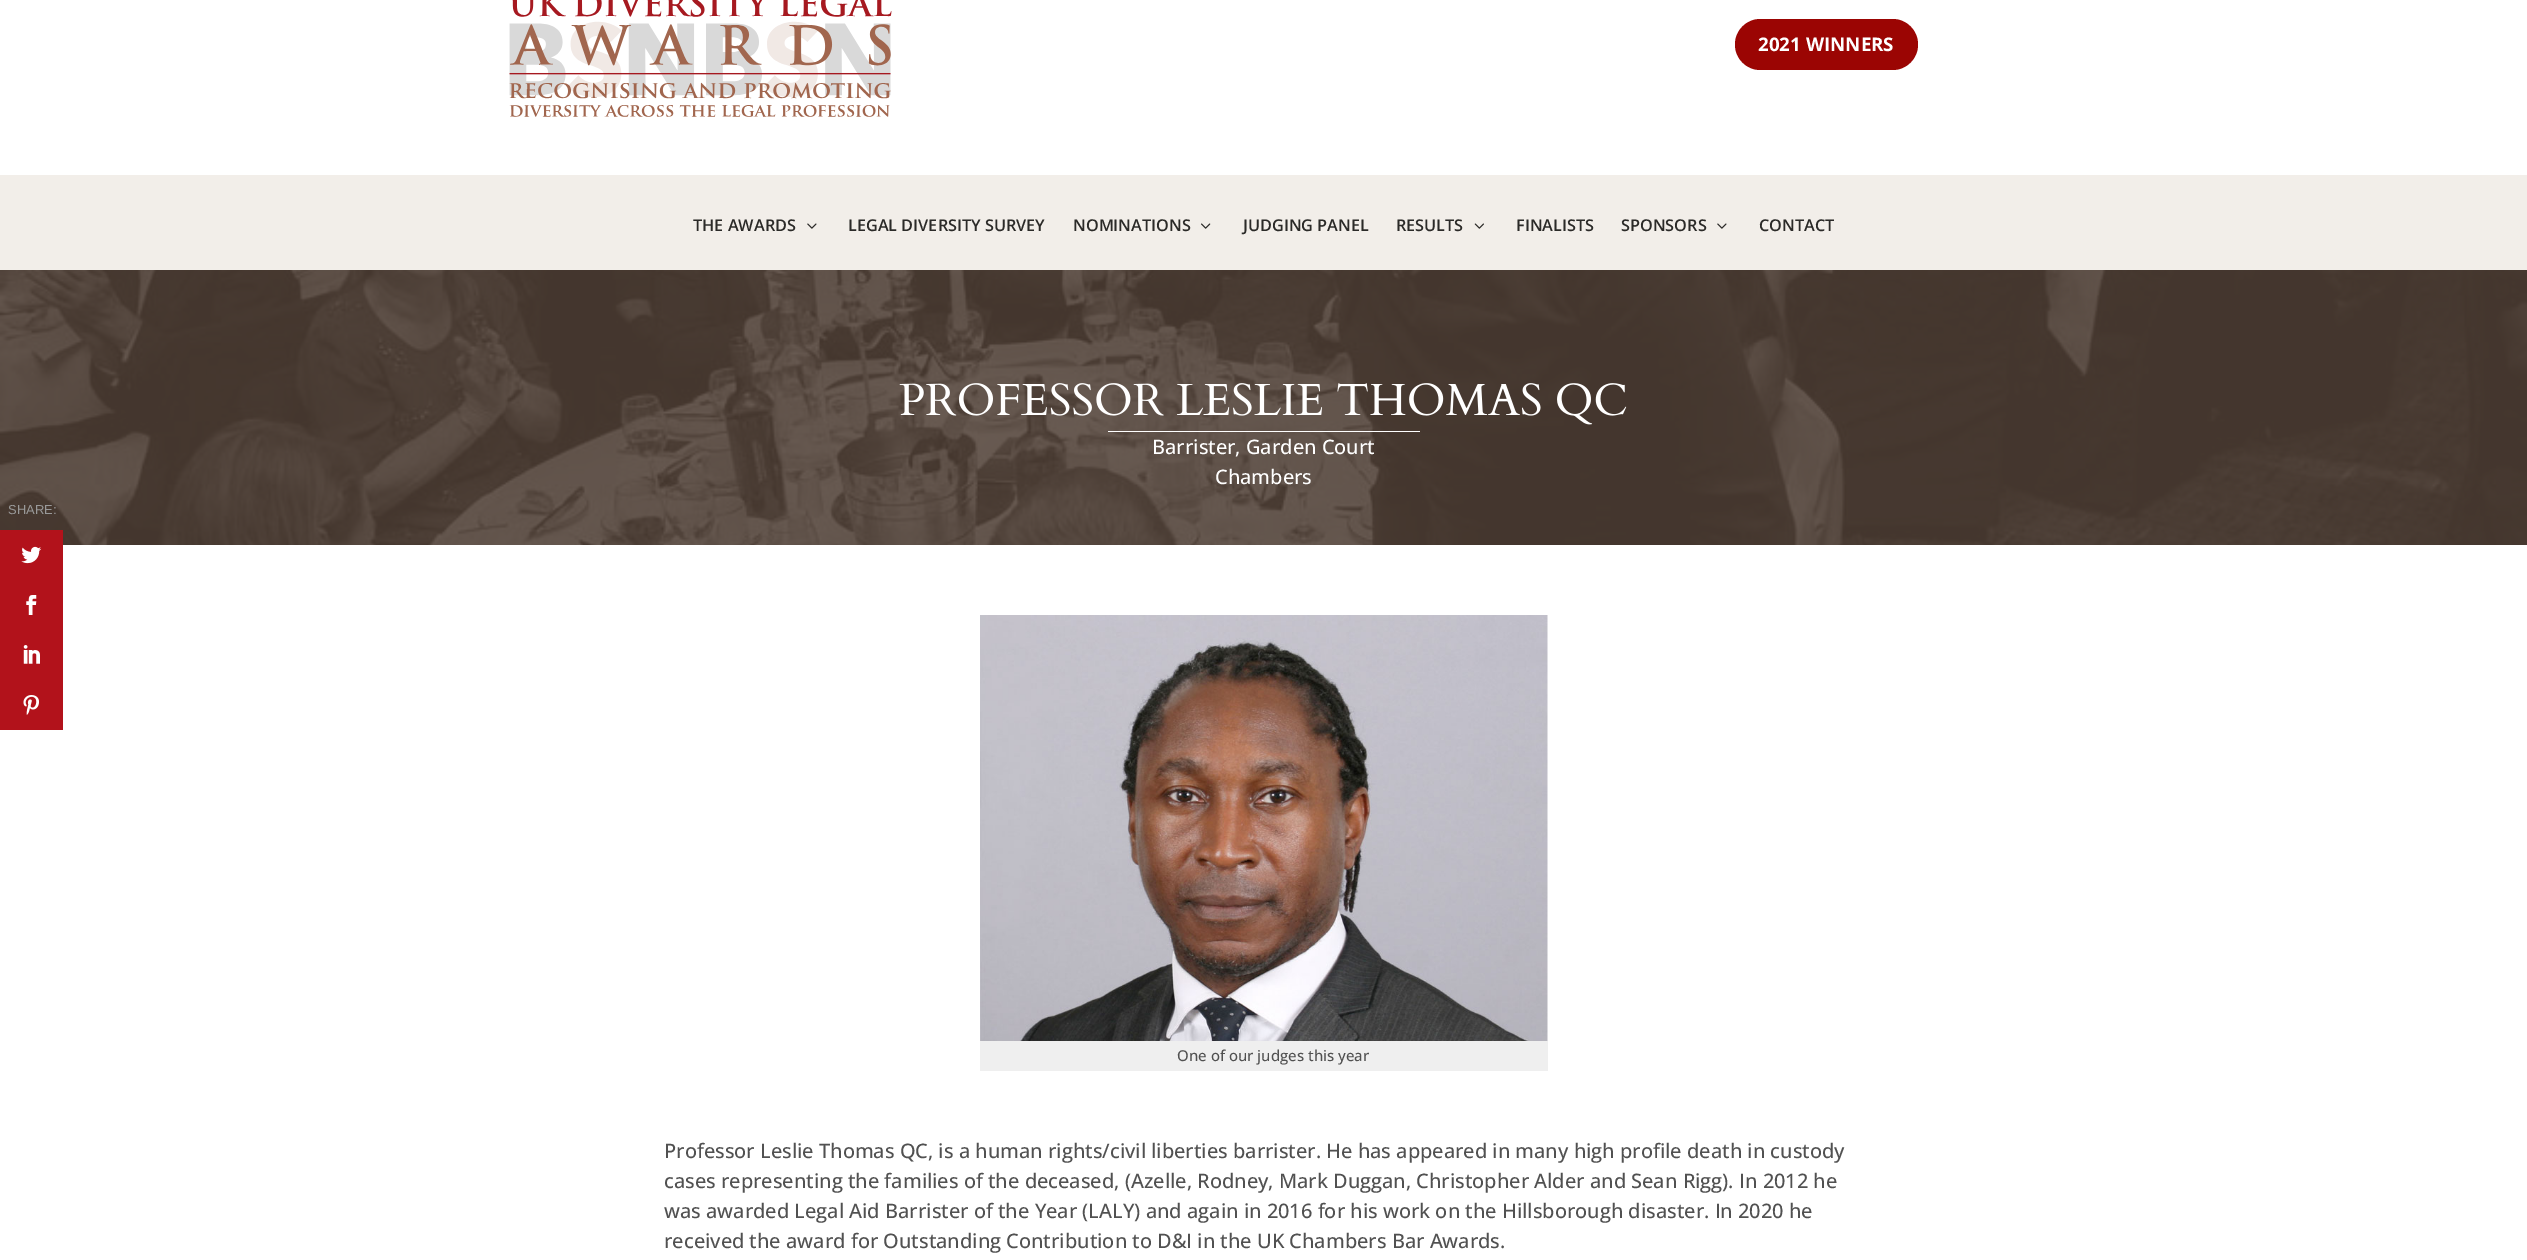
%!PS
<< /PageSize [2527 1260] >> setpagedevice
/rgb { 3 { 255 div 3 1 roll } repeat setrgbcolor } def
/font { [ exch dup neg 0 0 3 -1 roll 0 0 ] selectfont } def
/roundrect { 5 dict begin { /r /h /w /y /x } { exch def } forall
  x r add y moveto x w add y 2 copy h add r arct x w add y h add x 1 index r arct
  x y h add x y r arct x y 2 copy exch w add exch r arct closepath end } def
/picture { 5 dict begin { /h /w /y /x /name } { exch def } forall
  gsave x y translate w h scale
  w h 8 [w 0 0 h 0 0] name (r) file false 3 colorimage grestore end } def
0 1260 translate 1 -1 scale
4 setmiterlimit
255 255 255 rgb
0 0 2527 1260 rectfill
(img/9.rgb) 0 270 2527 275 picture
178 18 27 rgb
0 530 63 200 rectfill
(img/1.rgb) 21 546 21 18 picture
(img/2.rgb) 26 595 11 20 picture
(img/3.rgb) 23 645 17 19 picture
(img/4.rgb) 23 695 16 20 picture
(img/5.rgb) 509 0 383 117 picture
155 5 3 rgb
1735 19 183 51 25.5 roundrect fill
242 238 233 rgb
0 175 2527 95 rectfill
(img/6.rgb) 807 223 10 6 picture
(img/7.rgb) 1201 223 10 6 picture
(img/8.rgb) 1474 223 10 6 picture
(img/6.rgb) 1717 223 10 6 picture
(img/10.rgb) 899 383 728 42 picture
255 255 255 rgb
1108 431 312 1 rectfill
(img/11.rgb) 980 615 568 426 picture
239 239 239 rgb
980 1041 568 30 rectfill
/LiberationSans-Regular 13 font
153 153 153 rgb
8 514 moveto (SHARE:) show
/OpenSans-Bold 18.75 font
255 255 255 rgb
1758 51 moveto (2021 WINNERS) show
/OpenSans-SemiBold 16.25 font
43 42 40 rgb
[
  [(THE AWARDS) 693 231]
  [(LEGAL DIVERSITY SURVEY) 848 231]
  [(NOMINATIONS) 1073 231]
  [(JUDGING PANEL) 1243 231]
  [(RESULTS) 1396 231]
  [(FINALISTS) 1516 231]
  [(SPONSORS) 1621 231]
  [(CONTACT) 1759 231]
] { aload pop moveto show } forall
/OpenSans-Medium 20 font
255 255 255 rgb
1152 454 moveto (Barrister, Garden Court) show
1215 484 moveto (Chambers) show
/OpenSans-Medium 15 font
81 81 81 rgb
1177 1061 moveto (One of our judges this year) show
/OpenSans-Medium 20 font
[
  [(Professor Leslie Thomas QC, is a human rights/civil liberties barrister. He has appeared in many high profile death in custody) 664 1158]
  [(cases representing the families of the deceased, \(Azelle, Rodney, Mark Duggan, Christopher Alder and Sean Rigg\). In 2012 he) 664 1188]
  [(was awarded Legal Aid Barrister of the Year \(LALY\) and again in 2016 for his work on the Hillsborough disaster. In 2020 he) 664 1218]
  [(received the award for Outstanding Contribution to D&I in the UK Chambers Bar Awards.) 664 1248]
] { aload pop moveto show } forall
showpage
